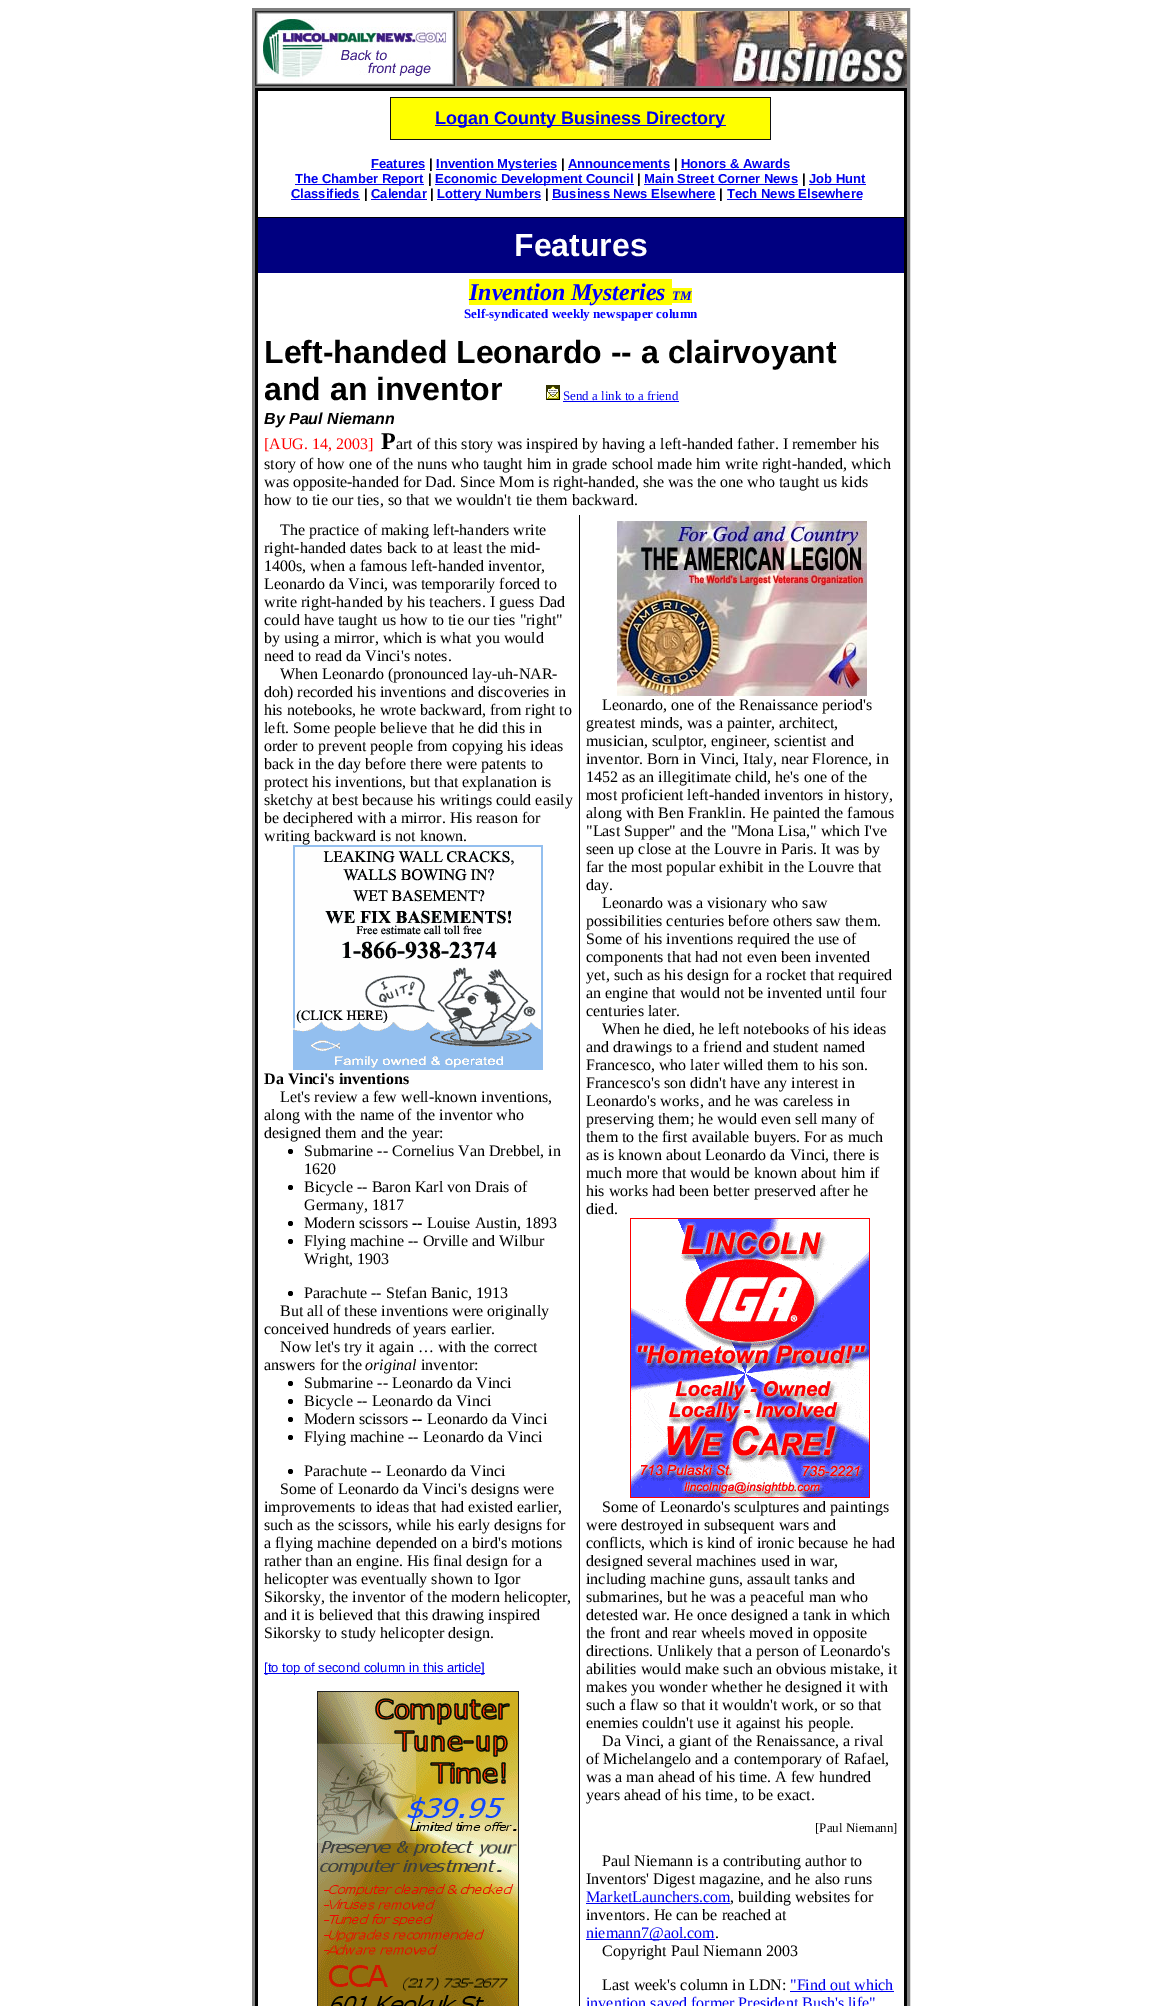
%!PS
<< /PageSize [1161 2006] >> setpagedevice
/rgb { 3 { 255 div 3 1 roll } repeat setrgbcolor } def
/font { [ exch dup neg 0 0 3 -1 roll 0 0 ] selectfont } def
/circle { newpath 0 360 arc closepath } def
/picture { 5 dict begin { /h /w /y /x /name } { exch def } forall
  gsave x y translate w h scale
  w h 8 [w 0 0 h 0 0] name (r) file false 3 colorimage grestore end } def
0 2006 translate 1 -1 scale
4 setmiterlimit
255 255 255 rgb
0 0 1161 2006 rectfill
128 128 128 rgb
2 setlinewidth
253 9 656 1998 rectstroke
1 setlinewidth
254.5 10.5 201 76 rectstroke
(img/1.rgb) 255 11 200 75 picture
456.5 10.5 451 76 rectstroke
(img/2.rgb) 457 11 450 75 picture
254.5 87.5 653 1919 rectstroke
[
  [255 88 652 3 0 0 0]
  [256 217 650 1 0 0 0]
  [904 88 3 1918 0 0 0]
  [255 88 3 1918 0 0 0]
  [391 98 379 41 255 255 0]
  [390 97 381 1 17 17 17]
  [770 97 1 43 17 17 17]
  [390 139 381 1 17 17 17]
  [390 97 1 43 17 17 17]
  [435 125 291 1 0 0 238]
  [371 169 54 1 0 0 238]
  [436 169 121 1 0 0 238]
  [568 169 102 1 0 0 238]
  [681 169 109 1 0 0 238]
  [295 184 129 1 0 0 238]
  [435 184 199 1 0 0 238]
  [644 184 154 1 0 0 238]
  [809 184 57 1 0 0 238]
  [291 199 69 1 0 0 238]
  [371 199 56 1 0 0 238]
  [437 199 104 1 0 0 238]
  [552 199 164 1 0 0 238]
  [727 199 135 1 0 0 238]
  [258 218 646 55 0 0 128]
  [469 279 203 26 255 255 0]
  [672 288 20 15 255 255 0]
] { aload pop rgb rectfill } forall
(img/3.rgb) 546 385 14 15 picture
0 0 238 rgb
563 401 116 1 rectfill
0 0 0 rgb
579 515 1 1491 rectfill
(img/4.rgb) 293 845 250 225 picture
290.5 1151.5 2.5 circle fill
290.5 1187.5 2.5 circle fill
290.5 1223.5 2.5 circle fill
290.5 1241.5 2.5 circle fill
290.5 1293.5 2.5 circle fill
290.5 1383.5 2.5 circle fill
290.5 1401.5 2.5 circle fill
290.5 1419.5 2.5 circle fill
290.5 1437.5 2.5 circle fill
290.5 1471.5 2.5 circle fill
0 0 238 rgb
264 1673 221 1 rectfill
(img/5.rgb) 317 1691 202 315 picture
(img/6.rgb) 617 521 250 175 picture
(img/7.rgb) 630 1218 240 280 picture
[
  [586 1903 144 1 0 0 238]
  [586 1939 129 1 0 0 238]
  [790 1991 104 1 0 0 238]
] { aload pop rgb rectfill } forall
/LiberationSans-Bold 18 font
435 124 moveto (Logan County Business Directory) show
/LiberationSans-Bold 13 font
371 168 moveto (Features) show
0 0 0 rgb
429 168 moveto (|) show
0 0 238 rgb
436 168 moveto (Invention Mysteries) show
0 0 0 rgb
561 168 moveto (|) show
0 0 238 rgb
568 168 moveto (Announcements) show
0 0 0 rgb
674 168 moveto (|) show
0 0 238 rgb
681 168 moveto (Honors & Awards) show
295 183 moveto (The Chamber Report) show
0 0 0 rgb
428 183 moveto (|) show
0 0 238 rgb
435 183 moveto (Economic Development Council) show
0 0 0 rgb
637 183 moveto (|) show
0 0 238 rgb
644 183 moveto (Main Street Corner News) show
0 0 0 rgb
802 183 moveto (|) show
0 0 238 rgb
809 183 moveto (Job Hunt) show
291 198 moveto (Classifieds) show
0 0 0 rgb
364 198 moveto (|) show
0 0 238 rgb
371 198 moveto (Calendar) show
0 0 0 rgb
430 198 moveto (|) show
0 0 238 rgb
437 198 moveto (Lottery Numbers) show
0 0 0 rgb
545 198 moveto (|) show
0 0 238 rgb
552 198 moveto (Business News Elsewhere) show
0 0 0 rgb
719 198 moveto (|) show
0 0 238 rgb
727 198 moveto (Tech News Elsewhere) show
/LiberationSans-Bold 32 font
255 255 255 rgb
514 256 moveto (Features) show
/LiberationSerif-BoldItalic 24 font
0 0 255 rgb
469 300 moveto (Invention Mysteries) show
/LiberationSerif-BoldItalic 13 font
672 300 moveto (TM) show
/LiberationSerif-Bold 13 font
464 318 moveto (Self-syndicated weekly newspaper column) show
/LiberationSans-Bold 32 font
0 0 0 rgb
264 363 moveto (Left-handed Leonardo -- a clairvoyant) show
264 400 moveto (and an inventor) show
/LiberationSerif-Regular 13 font
0 0 238 rgb
563 400 moveto (Send a link to a friend) show
/LiberationSans-BoldItalic 16 font
0 0 0 rgb
264 424 moveto (By Paul Niemann) show
/LiberationSerif-Regular 16 font
255 0 0 rgb
264 449 moveto ([AUG. 14, 2003]) show
/LiberationSerif-Bold 24 font
0 0 0 rgb
381 449 moveto (P) show
/LiberationSerif-Regular 16 font
[
  [(art of this story was inspired by having a left-handed father. I remember his) 396 449]
  [(story of how one of the nuns who taught him in grade school made him write right-handed, which) 264 469]
  [(was opposite-handed for Dad. Since Mom is right-handed, she was the one who taught us kids) 264 487]
  [(how to tie our ties, so that we wouldn't tie them backward.) 264 505]
  [(The practice of making left-handers write) 280 535]
  [(right-handed dates back to at least the mid-) 264 553]
  [(1400s, when a famous left-handed inventor,) 264 571]
  [(Leonardo da Vinci, was temporarily forced to) 264 589]
  [(write right-handed by his teachers. I guess Dad) 264 607]
  [(could have taught us how to tie our ties "right") 264 625]
  [(by using a mirror, which is what you would) 264 643]
  [(need to read da Vinci's notes.) 264 661]
  [(When Leonardo \(pronounced lay-uh-NAR-) 280 679]
  [(doh\) recorded his inventions and discoveries in) 264 697]
  [(his notebooks, he wrote backward, from right to) 264 715]
  [(left. Some people believe that he did this in) 264 733]
  [(order to prevent people from copying his ideas) 264 751]
  [(back in the day before there were patents to) 264 769]
  [(protect his inventions, but that explanation is) 264 787]
  [(sketchy at best because his writings could easily) 264 805]
  [(be deciphered with a mirror. His reason for) 264 823]
  [(writing backward is not known.) 264 841]
] { aload pop moveto show } forall
/LiberationSerif-Bold 16 font
264 1084 moveto (Da Vinci's inventions) show
/LiberationSerif-Regular 16 font
[
  [(Let's review a few well-known inventions,) 280 1102]
  [(along with the name of the inventor who) 264 1120]
  [(designed them and the year:) 264 1138]
  [(Submarine -- Cornelius Van Drebbel, in) 304 1156]
  [(1620) 304 1174]
  [(Bicycle -- Baron Karl von Drais of) 304 1192]
  [(Germany, 1817) 304 1210]
  [(Modern scissors) 304 1228]
] { aload pop moveto show } forall
/LiberationSerif-Bold 16 font
412 1228 moveto (--) show
/LiberationSerif-Regular 16 font
[
  [(Louise Austin, 1893) 427 1228]
  [(Flying machine -- Orville and Wilbur) 304 1246]
  [(Wright, 1903) 304 1264]
  [(Parachute -- Stefan Banic, 1913) 304 1298]
  [(But all of these inventions were originally) 280 1316]
  [(conceived hundreds of years earlier.) 264 1334]
  [(Now let's try it again … with the correct) 280 1352]
  [(answers for the) 264 1370]
] { aload pop moveto show } forall
/LiberationSerif-Italic 16 font
365 1370 moveto (original) show
/LiberationSerif-Regular 16 font
[
  [(inventor:) 421 1370]
  [(Submarine -- Leonardo da Vinci) 304 1388]
  [(Bicycle -- Leonardo da Vinci) 304 1406]
  [(Modern scissors) 304 1424]
] { aload pop moveto show } forall
/LiberationSerif-Bold 16 font
412 1424 moveto (--) show
/LiberationSerif-Regular 16 font
[
  [(Leonardo da Vinci) 427 1424]
  [(Flying machine -- Leonardo da Vinci) 304 1442]
  [(Parachute -- Leonardo da Vinci) 304 1476]
  [(Some of Leonardo da Vinci's designs were) 280 1494]
  [(improvements to ideas that had existed earlier,) 264 1512]
  [(such as the scissors, while his early designs for) 264 1530]
  [(a flying machine depended on a bird's motions) 264 1548]
  [(rather than an engine. His final design for a) 264 1566]
  [(helicopter was eventually shown to Igor) 264 1584]
  [(Sikorsky, the inventor of the modern helicopter,) 264 1602]
  [(and it is believed that this drawing inspired) 264 1620]
  [(Sikorsky to study helicopter design.) 264 1638]
] { aload pop moveto show } forall
/LiberationSans-Regular 13 font
0 0 238 rgb
264 1672 moveto ([to top of second column in this article]) show
/LiberationSerif-Regular 16 font
0 0 0 rgb
[
  [(Leonardo, one of the Renaissance period's) 602 710]
  [(greatest minds, was a painter, architect,) 586 728]
  [(musician, sculptor, engineer, scientist and) 586 746]
  [(inventor. Born in Vinci, Italy, near Florence, in) 586 764]
  [(1452 as an illegitimate child, he's one of the) 586 782]
  [(most proficient left-handed inventors in history,) 586 800]
  [(along with Ben Franklin. He painted the famous) 586 818]
  [("Last Supper" and the "Mona Lisa," which I've) 586 836]
  [(seen up close at the Louvre in Paris. It was by) 586 854]
  [(far the most popular exhibit in the Louvre that) 586 872]
  [(day.) 586 890]
  [(Leonardo was a visionary who saw) 602 908]
  [(possibilities centuries before others saw them.) 586 926]
  [(Some of his inventions required the use of) 586 944]
  [(components that had not even been invented) 586 962]
  [(yet, such as his design for a rocket that required) 586 980]
  [(an engine that would not be invented until four) 586 998]
  [(centuries later.) 586 1016]
  [(When he died, he left notebooks of his ideas) 602 1034]
  [(and drawings to a friend and student named) 586 1052]
  [(Francesco, who later willed them to his son.) 586 1070]
  [(Francesco's son didn't have any interest in) 586 1088]
  [(Leonardo's works, and he was careless in) 586 1106]
  [(preserving them; he would even sell many of) 586 1124]
  [(them to the first available buyers. For as much) 586 1142]
  [(as is known about Leonardo da Vinci, there is) 586 1160]
  [(much more that would be known about him if) 586 1178]
  [(his works had been better preserved after he) 586 1196]
  [(died.) 586 1214]
  [(Some of Leonardo's sculptures and paintings) 602 1512]
  [(were destroyed in subsequent wars and) 586 1530]
  [(conflicts, which is kind of ironic because he had) 586 1548]
  [(designed several machines used in war,) 586 1566]
  [(including machine guns, assault tanks and) 586 1584]
  [(submarines, but he was a peaceful man who) 586 1602]
  [(detested war. He once designed a tank in which) 586 1620]
  [(the front and rear wheels moved in opposite) 586 1638]
  [(directions. Unlikely that a person of Leonardo's) 586 1656]
  [(abilities would make such an obvious mistake, it) 586 1674]
  [(makes you wonder whether he designed it with) 586 1692]
  [(such a flaw so that it wouldn't work, or so that) 586 1710]
  [(enemies couldn't use it against his people.) 586 1728]
  [(Da Vinci, a giant of the Renaissance, a rival) 602 1746]
  [(of Michelangelo and a contemporary of Rafael,) 586 1764]
  [(was a man ahead of his time. A few hundred) 586 1782]
  [(years ahead of his time, to be exact.) 586 1800]
] { aload pop moveto show } forall
/LiberationSerif-Regular 13 font
815 1832 moveto ([Paul Niemann]) show
/LiberationSerif-Regular 16 font
602 1866 moveto (Paul Niemann is a contributing author to) show
586 1884 moveto (Inventors' Digest magazine, and he also runs) show
0 0 238 rgb
586 1902 moveto (MarketLaunchers.com) show
0 0 0 rgb
730 1902 moveto (, building websites for) show
586 1920 moveto (inventors. He can be reached at) show
0 0 238 rgb
586 1938 moveto (niemann7@aol.com) show
0 0 0 rgb
[
  [(.) 715 1938]
  [(Copyright Paul Niemann 2003) 602 1956]
  [(Last week's column in LDN:) 602 1990]
] { aload pop moveto show } forall
0 0 238 rgb
790 1990 moveto ("Find out which) show
586 2008 moveto (invention saved former President Bush's life") show
showpage
